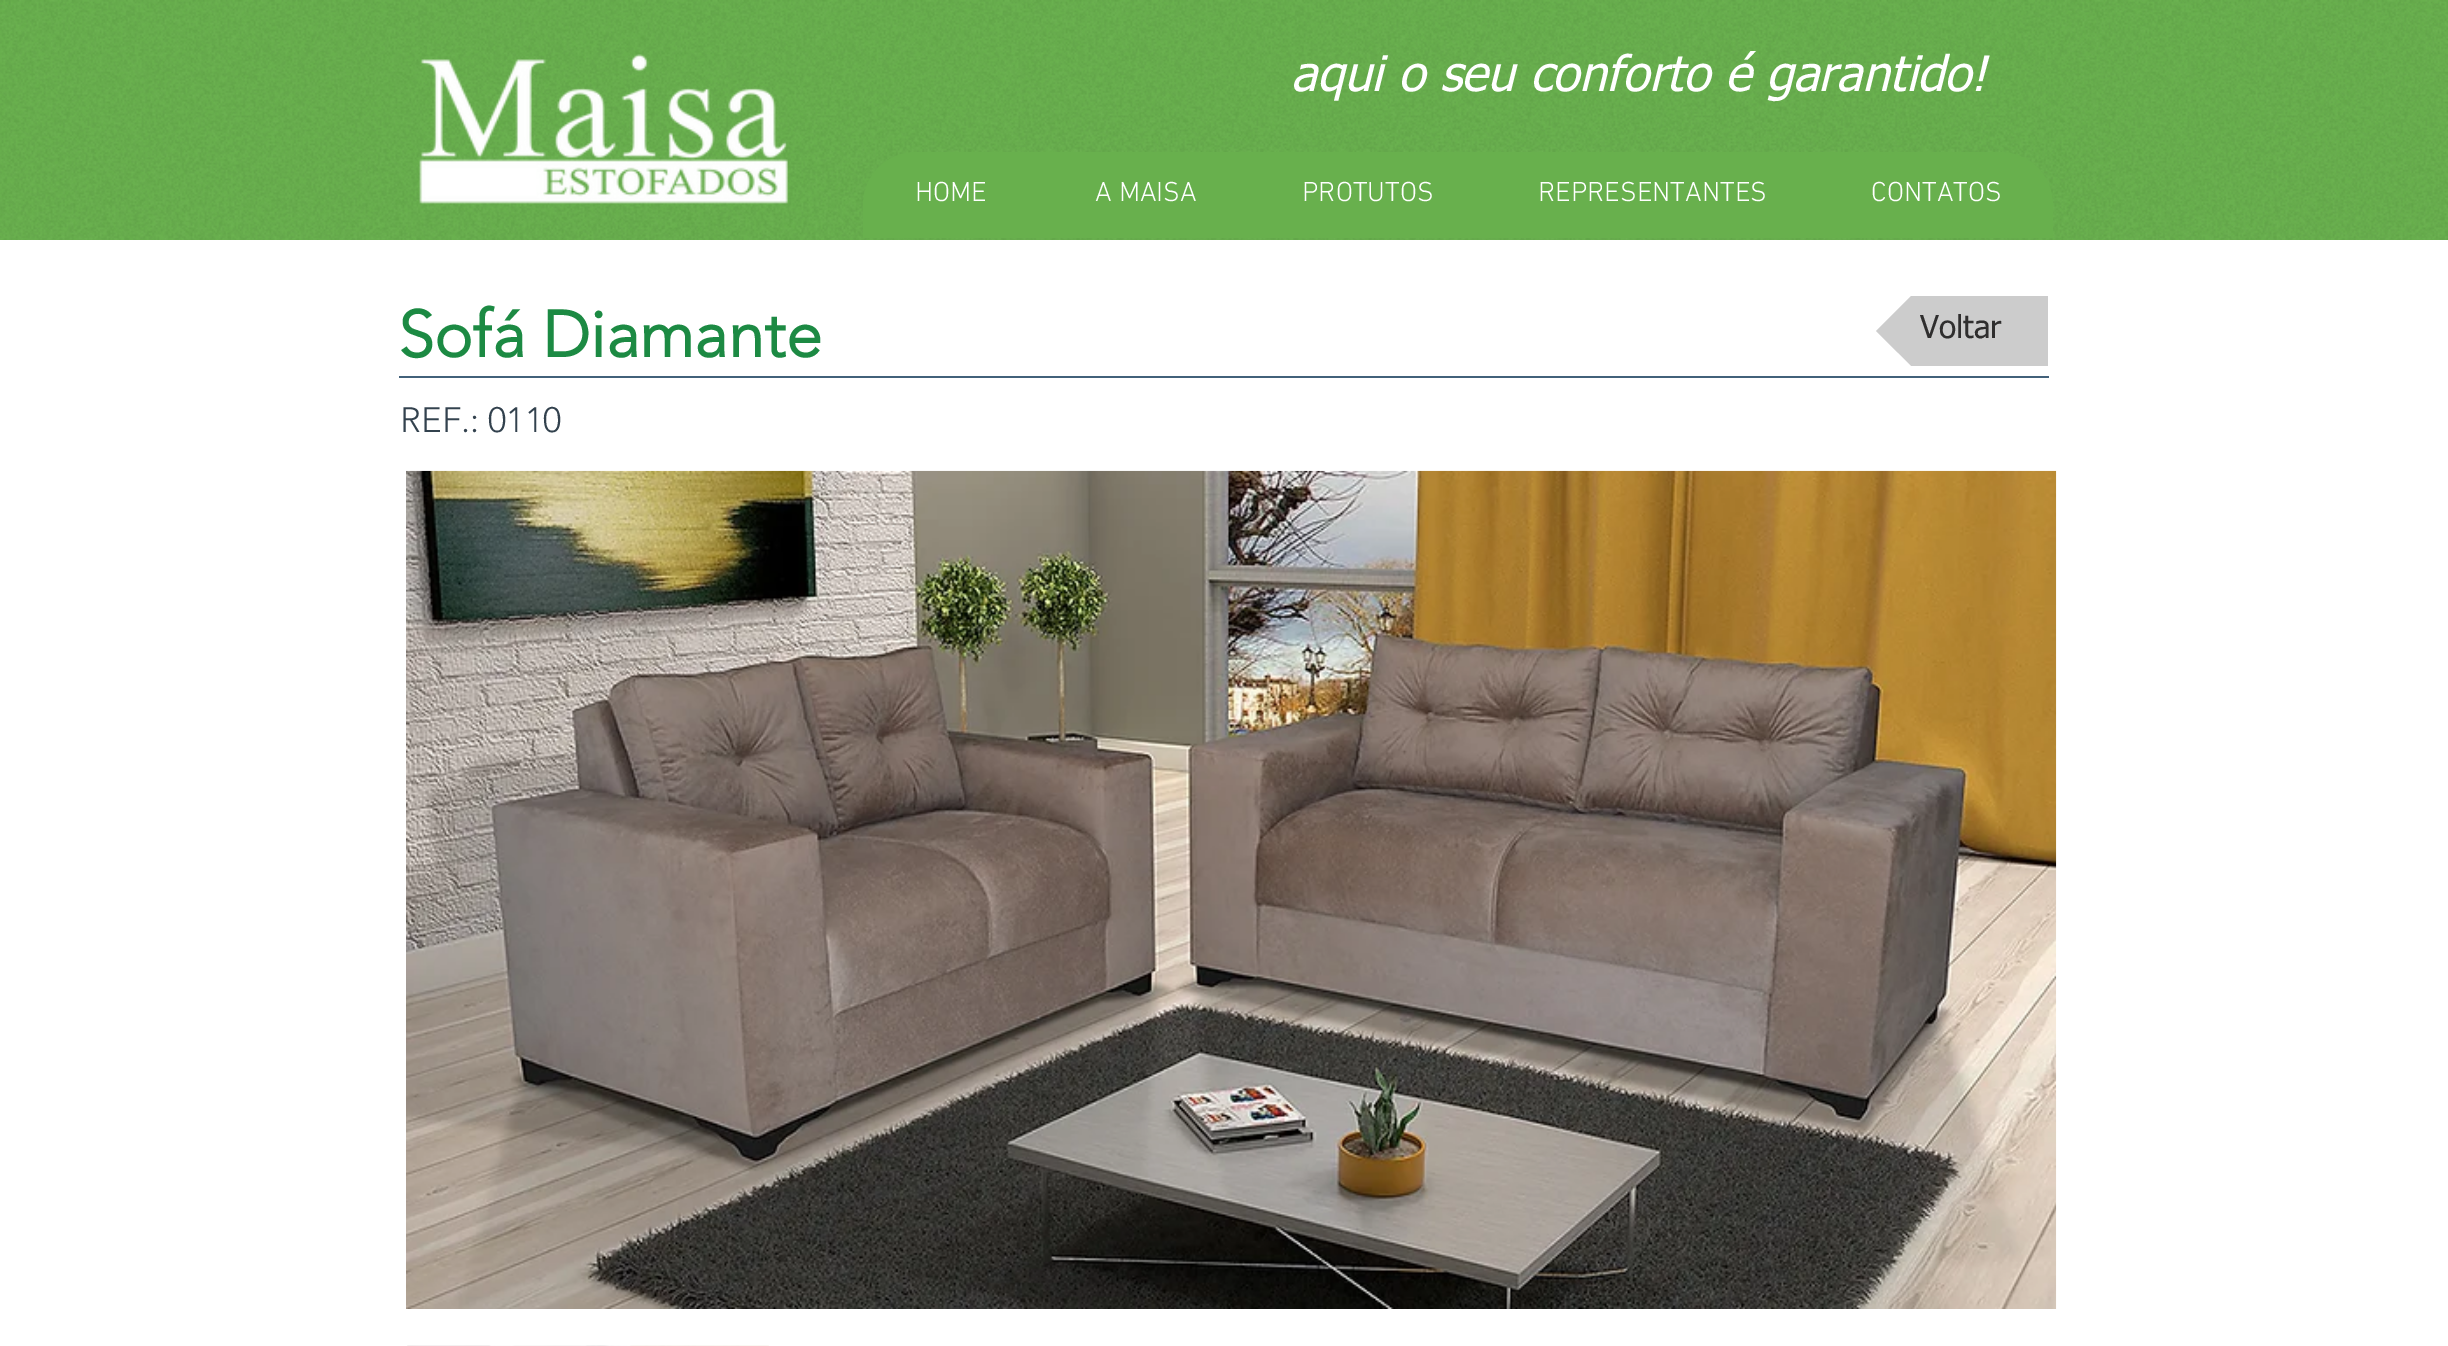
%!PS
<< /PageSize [2448 1346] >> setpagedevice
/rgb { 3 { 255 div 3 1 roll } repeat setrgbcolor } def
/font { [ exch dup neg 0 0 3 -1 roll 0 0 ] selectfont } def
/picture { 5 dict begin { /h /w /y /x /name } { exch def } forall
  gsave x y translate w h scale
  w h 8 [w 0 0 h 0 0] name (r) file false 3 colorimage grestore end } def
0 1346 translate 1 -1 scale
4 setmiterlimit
104 176 77 rgb
0 0 2448 1346 rectfill
(img/1.rgb) 0 0 2448 240 picture
(img/2.rgb) 419 54 369 150 picture
916 152 moveto 2000 152 lineto 2029.5 152 2053 175.5 2053 205 curveto 2053 238 lineto 863 238 lineto 863 205 lineto 863 175.5 886.5 152 916 152 curveto closepath fill
255 255 255 rgb
0 240 2448 1106 rectfill
gsave
1876 296 172 70 rectclip
204 204 204 rgb
1964 331 moveto 1876 331 lineto 1964 243 lineto closepath fill
grestore
204 204 204 rgb
1964 296 84 70 rectfill
gsave
1876 296 172 70 rectclip
1876 331 moveto 1964 331 lineto 1964 418 lineto closepath fill
grestore
66 97 122 rgb
399 376 1650 2 rectfill
(img/3.rgb) 406 470 1651 839 picture
(img/4.rgb) 407 1345 362 1 picture
/tahoma-Italic 49 font
255 255 255 rgb
1291 91 moveto (aqui o seu conforto é garantido!) show
/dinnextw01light-Light 28 font
[
  [(HOME) 915 201]
  [(A MAISA) 1095 201]
  [(PROTUTOS) 1302 201]
  [(REPRESENTANTES) 1538 201]
  [(CONTATOS) 1871 201]
] { aload pop moveto show } forall
/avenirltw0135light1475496-Bold 64.75 font
28 138 67 rgb
398 357 moveto (Sofá Diamante) show
/tahoma-Regular 31.5 font
47 46 46 rgb
1920 338 moveto (Voltar) show
/avenirltw0135light1475496-Light 35 font
51 66 78 rgb
400 432 moveto (REF.: 0110) show
showpage
